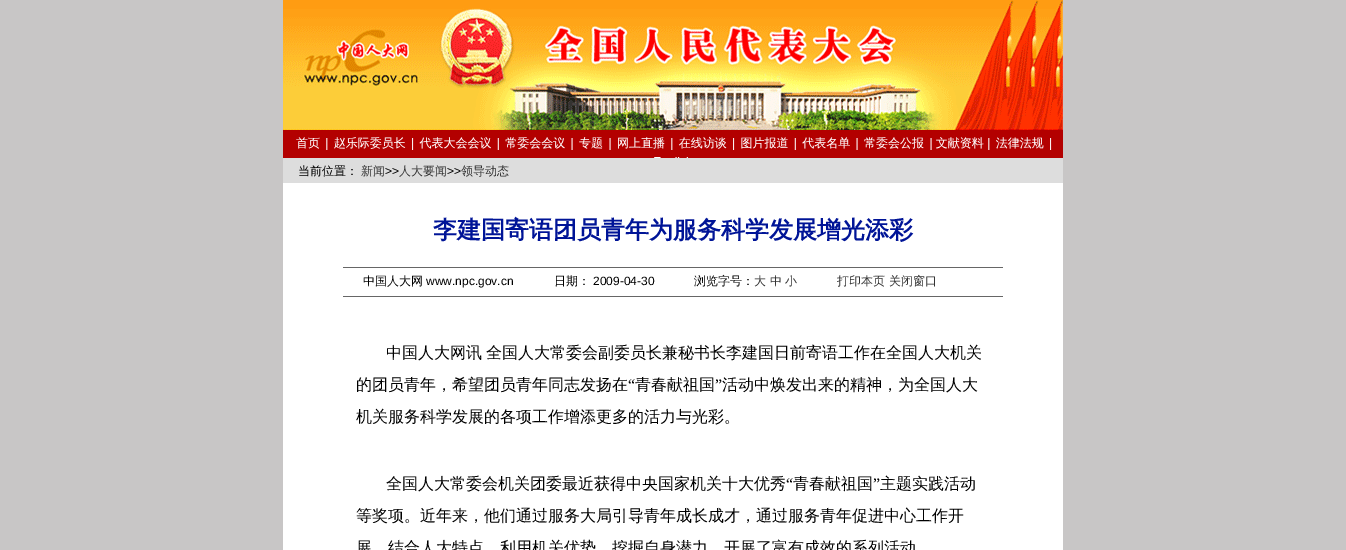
%!PS
<< /PageSize [1346 550] >> setpagedevice
/rgb { 3 { 255 div 3 1 roll } repeat setrgbcolor } def
/font { [ exch dup neg 0 0 3 -1 roll 0 0 ] selectfont } def
/picture { 5 dict begin { /h /w /y /x /name } { exch def } forall
  gsave x y translate w h scale
  w h 8 [w 0 0 h 0 0] name (r) file false 3 colorimage grestore end } def
0 550 translate 1 -1 scale
4 setmiterlimit
200 198 198 rgb
0 0 1346 550 rectfill
(img/1.rgb) 283 0 780 158 picture
[
  [283 158 780 25 221 221 221]
  [283 183 780 367 255 255 255]
  [343 267 660 1 102 102 102]
  [343 296 660 1 102 102 102]
] { aload pop rgb rectfill } forall
/WenQuanYiZenHei-Medium 12 font
0 0 0 rgb
298 175 moveto (当前位置：) show
51 51 51 rgb
361 175 moveto (新闻) show
/LiberationSans-Regular 12 font
0 0 0 rgb
385 175 moveto (>>) show
/WenQuanYiZenHei-Medium 12 font
51 51 51 rgb
399 175 moveto (人大要闻) show
/LiberationSans-Regular 12 font
0 0 0 rgb
447 175 moveto (>>) show
/WenQuanYiZenHei-Medium 12 font
51 51 51 rgb
461 175 moveto (领导动态) show
/WenQuanYiZenHei-Bold 24 font
0 20 151 rgb
433 238 moveto (李建国寄语团员青年为服务科学发展增光添彩) show
/WenQuanYiZenHei-Medium 12 font
0 0 0 rgb
363 285 moveto (中国人大网) show
/LiberationSans-Regular 12 font
426 285 moveto (www.npc.gov.cn) show
/WenQuanYiZenHei-Medium 12 font
554 285 moveto (日期：) show
/LiberationSans-Regular 12 font
593 285 moveto (2009-04-30) show
/WenQuanYiZenHei-Medium 12 font
694 285 moveto (浏览字号：) show
51 51 51 rgb
754 285 moveto (大 中 小) show
837 285 moveto (打印本页 关闭窗口) show
/WenQuanYiZenHei-Medium 16 font
0 0 0 rgb
386 358 moveto -1 0 32 (中国人大网讯 全国人大常委会副委员长兼秘书长李建国日前寄语工作在全国人大机关) widthshow
356 390 moveto (的团员青年，希望团员青年同志发扬在) show
/LiberationSerif-Regular 16 font
628 390 moveto (“) show
/WenQuanYiZenHei-Medium 16 font
635 390 moveto (青春献祖国) show
/LiberationSerif-Regular 16 font
715 390 moveto (”) show
/WenQuanYiZenHei-Medium 16 font
[
  [(活动中焕发出来的精神，为全国人大) 722 390]
  [(机关服务科学发展的各项工作增添更多的活力与光彩。) 356 422]
  [(全国人大常委会机关团委最近获得中央国家机关十大优秀) 386 489]
] { aload pop moveto show } forall
/LiberationSerif-Regular 16 font
786 489 moveto (“) show
/WenQuanYiZenHei-Medium 16 font
793 489 moveto (青春献祖国) show
/LiberationSerif-Regular 16 font
873 489 moveto (”) show
/WenQuanYiZenHei-Medium 16 font
[
  [(主题实践活动) 880 489]
  [(等奖项。近年来，他们通过服务大局引导青年成长成才，通过服务青年促进中心工作开) 356 521]
  [(展，结合人大特点，利用机关优势，挖掘自身潜力，开展了富有成效的系列活动) 356 553]
] { aload pop moveto show } forall
showpage
